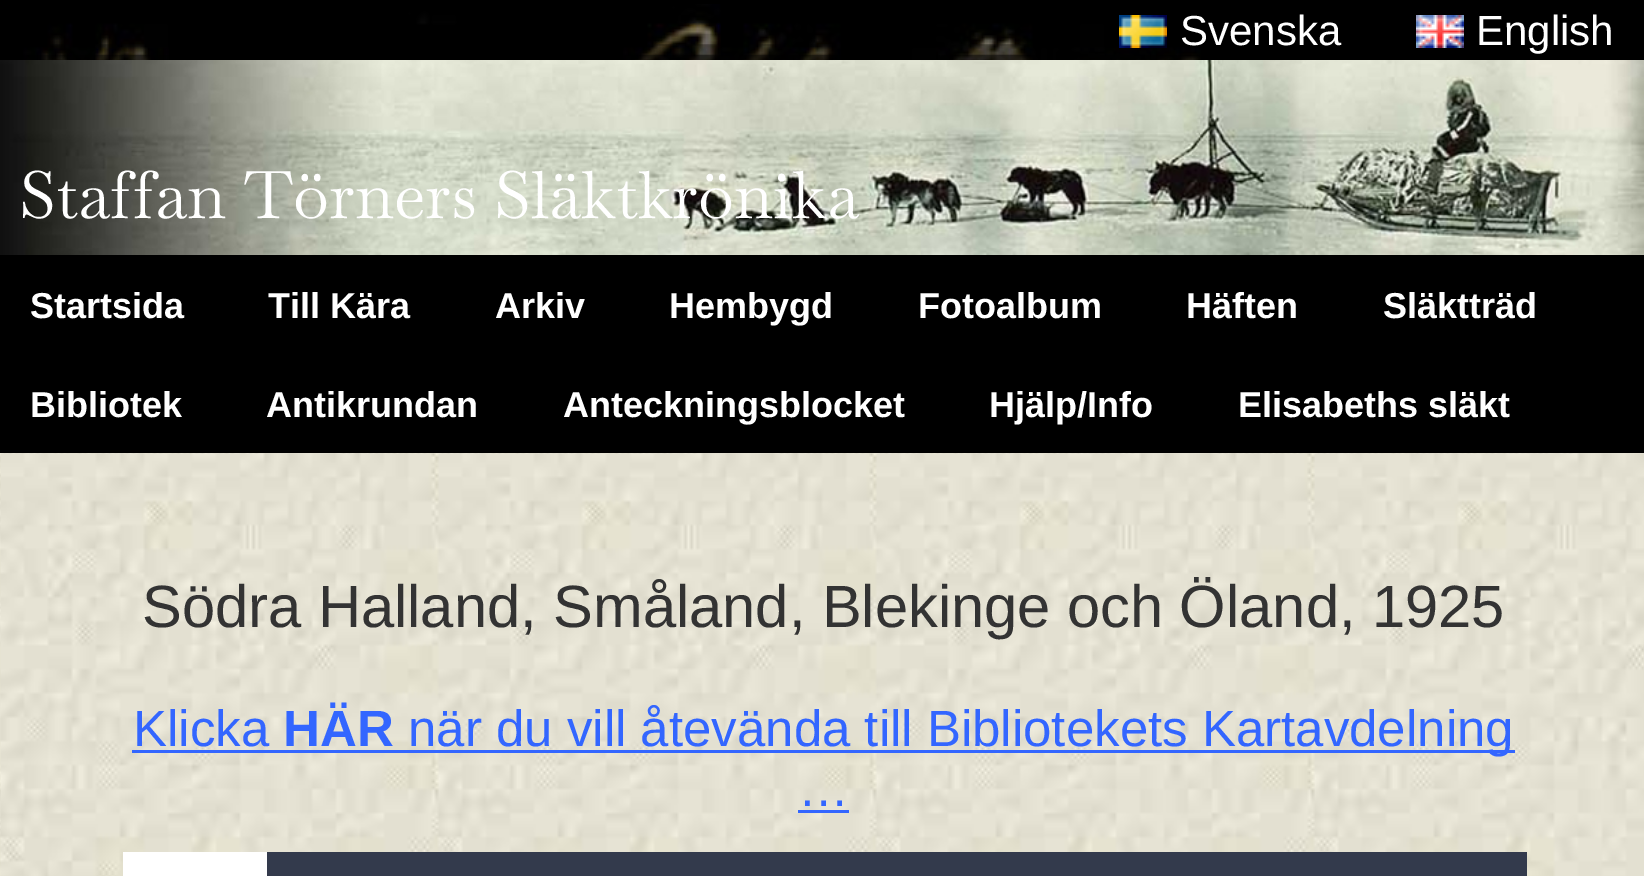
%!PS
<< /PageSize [1644 876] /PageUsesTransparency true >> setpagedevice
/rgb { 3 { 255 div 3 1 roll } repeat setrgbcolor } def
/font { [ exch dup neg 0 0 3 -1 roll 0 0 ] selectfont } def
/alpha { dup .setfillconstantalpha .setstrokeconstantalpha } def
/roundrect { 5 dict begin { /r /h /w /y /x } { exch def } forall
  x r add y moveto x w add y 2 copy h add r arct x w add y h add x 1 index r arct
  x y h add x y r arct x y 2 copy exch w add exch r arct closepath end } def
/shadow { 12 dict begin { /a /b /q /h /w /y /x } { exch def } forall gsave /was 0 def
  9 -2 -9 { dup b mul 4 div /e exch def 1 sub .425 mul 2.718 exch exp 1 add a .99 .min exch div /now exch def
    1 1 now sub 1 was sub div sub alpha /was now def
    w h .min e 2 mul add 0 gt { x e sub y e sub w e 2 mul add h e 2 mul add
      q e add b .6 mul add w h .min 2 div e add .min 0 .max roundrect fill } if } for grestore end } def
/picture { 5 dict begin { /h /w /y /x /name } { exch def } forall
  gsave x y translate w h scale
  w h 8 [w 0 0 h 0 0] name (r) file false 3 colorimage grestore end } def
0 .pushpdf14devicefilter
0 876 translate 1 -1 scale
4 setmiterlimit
0 0 0 rgb
0 0 1644 876 rectfill
(img/1.rgb) 0 4 1644 56 picture
0 60 1644 195 0 21 1 shadow
0 60 1644 195 30 21 1 shadow
(img/2.rgb) 1119 15 48 33 picture
(img/3.rgb) 1416 15 48 33 picture
(img/4.rgb) 0 60 1644 195 picture
(img/5.rgb) 0 453 1644 423 picture
51 102 255 rgb
132 750 1383 3 rectfill
798 810 51 3 rectfill
(img/6.rgb) 123 852 1404 24 picture
/LiberationSans-Regular 42 font
255 255 255 rgb
1180 45 moveto (Svenska) show
1476 45 moveto (English) show
/Baskervville-Regular 65.75 font
19 218 moveto (Staffan Törners Släktkrönika) show
/LiberationSans-Bold 36 font
[
  [(Startsida) 30 318]
  [(Till Kära) 268 318]
  [(Arkiv) 495 318]
  [(Hembygd) 669 318]
  [(Fotoalbum) 918 318]
  [(Häften) 1186 318]
  [(Släktträd) 1383 318]
  [(Bibliotek) 30 417]
  [(Antikrundan) 266 417]
  [(Anteckningsblocket) 563 417]
  [(Hjälp/Info) 989 417]
  [(Elisabeths släkt) 1238 417]
] { aload pop moveto show } forall
/LiberationSans-Regular 59.7 font
51 51 51 rgb
142 627 moveto -0.25 0 32 (Södra Halland, Småland, Blekinge och Öland, 1925) widthshow
/LiberationSans-Regular 51 font
51 102 255 rgb
133 746 moveto (Klicka) show
/LiberationSans-Bold 51 font
283 746 moveto (HÄR) show
/LiberationSans-Regular 51 font
408 746 moveto (när du vill åtevända till Bibliotekets Kartavdelning) show
798 806 moveto (…) show
.poppdf14devicefilter showpage
